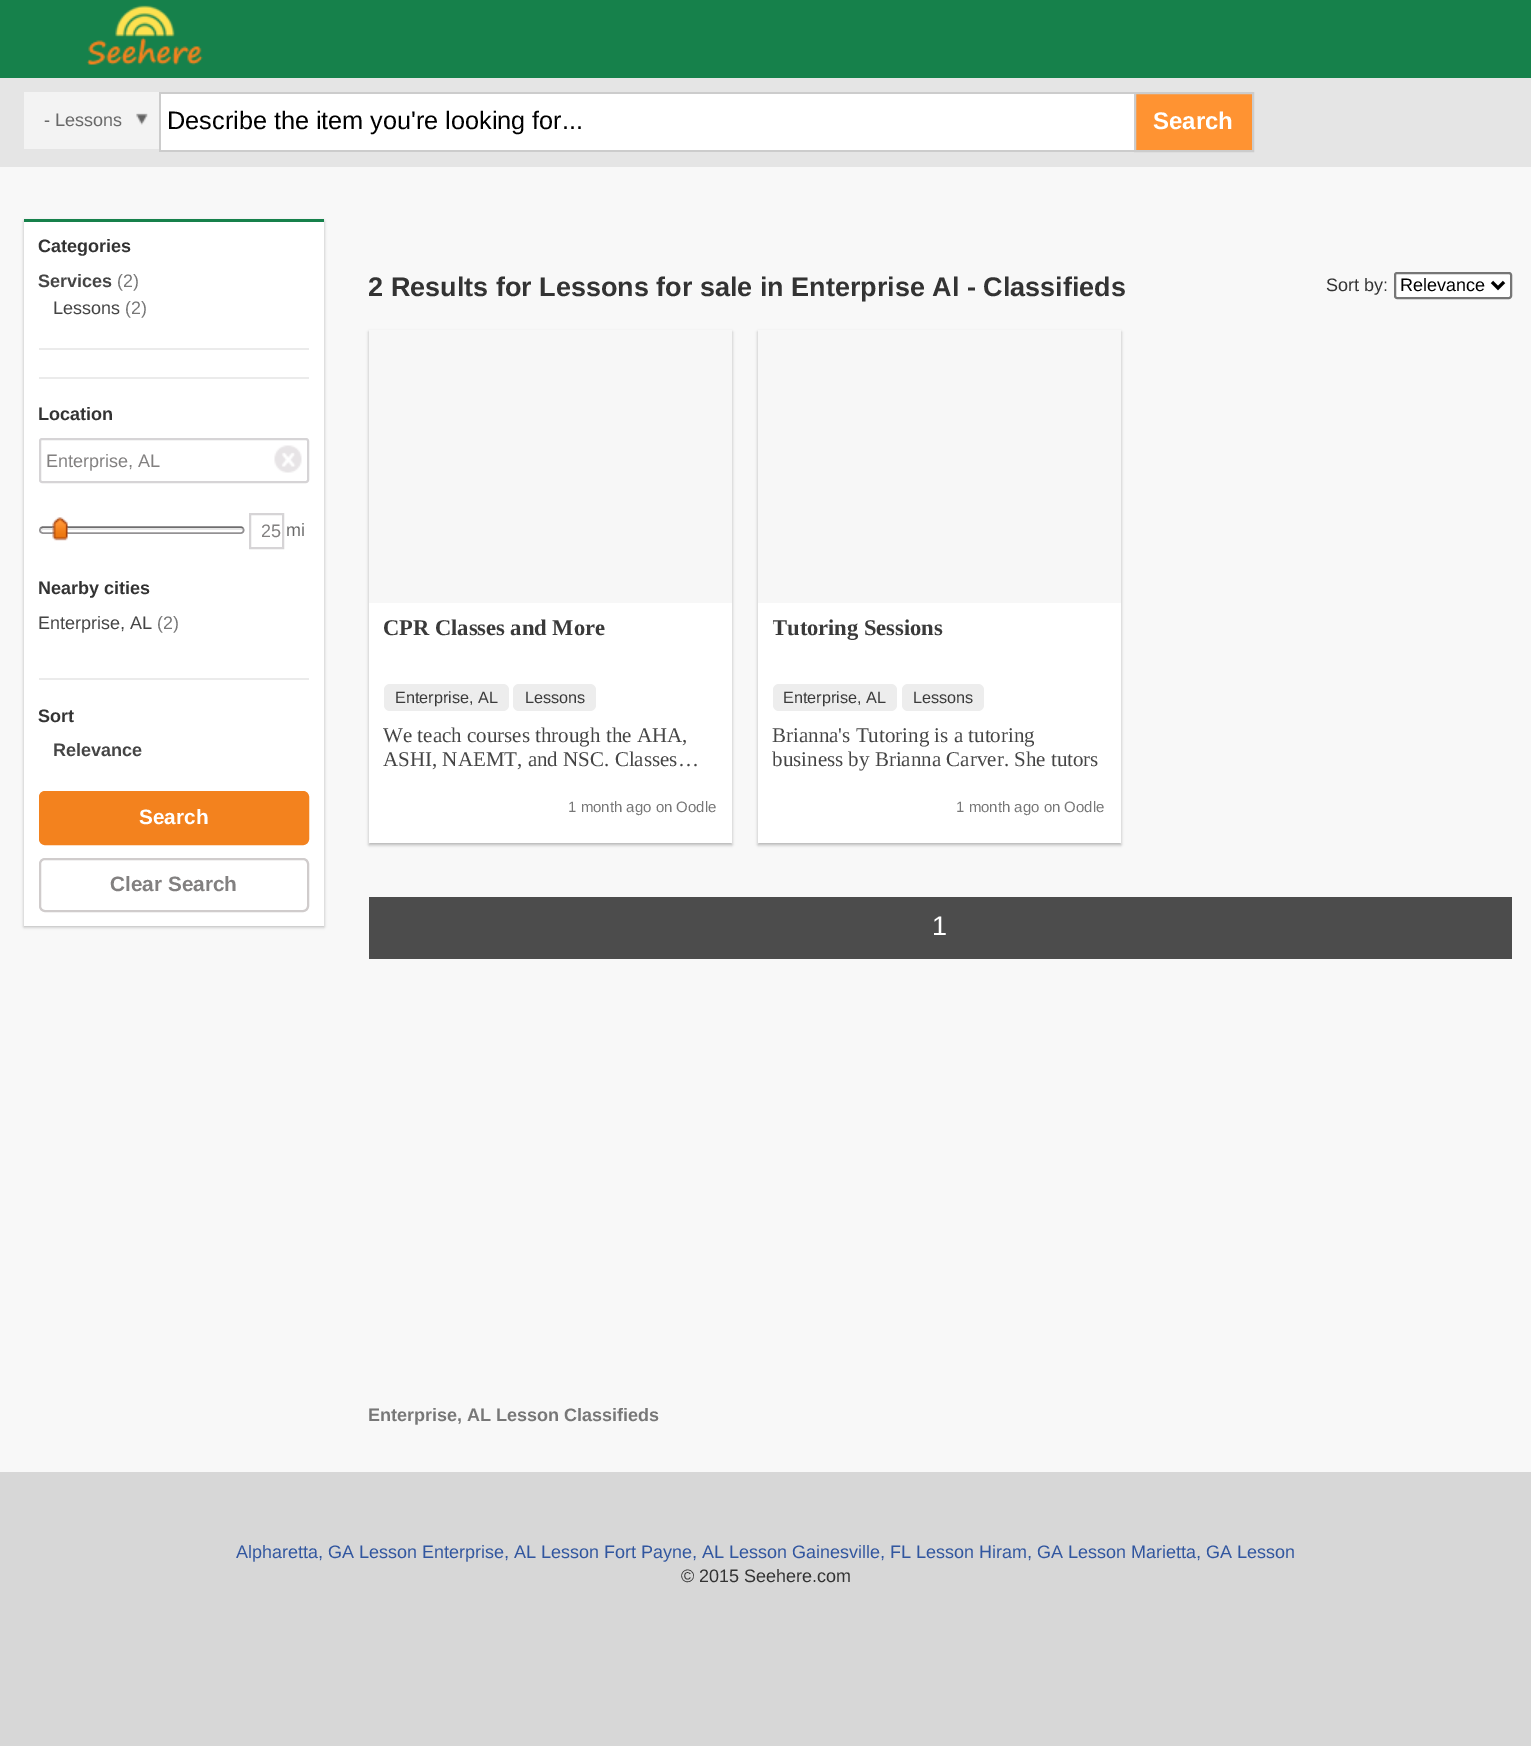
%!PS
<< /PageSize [1531 1746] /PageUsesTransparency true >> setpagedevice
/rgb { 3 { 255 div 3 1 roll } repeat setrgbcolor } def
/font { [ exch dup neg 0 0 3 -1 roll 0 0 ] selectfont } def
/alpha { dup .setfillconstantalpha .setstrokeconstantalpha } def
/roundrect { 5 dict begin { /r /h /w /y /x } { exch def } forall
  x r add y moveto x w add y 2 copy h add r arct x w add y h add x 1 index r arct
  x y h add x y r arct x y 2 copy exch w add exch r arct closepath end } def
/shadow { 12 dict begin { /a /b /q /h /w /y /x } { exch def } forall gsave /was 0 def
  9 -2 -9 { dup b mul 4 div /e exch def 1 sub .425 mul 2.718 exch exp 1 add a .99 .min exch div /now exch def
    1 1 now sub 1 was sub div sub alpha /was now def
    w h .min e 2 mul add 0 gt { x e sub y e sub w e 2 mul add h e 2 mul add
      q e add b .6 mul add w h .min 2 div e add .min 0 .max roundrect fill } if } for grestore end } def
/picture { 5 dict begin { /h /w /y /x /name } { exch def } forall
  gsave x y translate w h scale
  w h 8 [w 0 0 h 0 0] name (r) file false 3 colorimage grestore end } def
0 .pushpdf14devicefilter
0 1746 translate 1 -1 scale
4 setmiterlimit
215 215 215 rgb
0 0 1531 1746 rectfill
[
  [0 167 1531 1305 248 248 248]
  [0 0 1531 78 22 129 75]
  [0 78 1531 89 229 229 229]
] { aload pop rgb rectfill } forall
(img/1.rgb) 86 5 117 60 picture
243 243 243 rgb
24 92 135 57 rectfill
(img/2.rgb) 136 113 12 12 picture
[
  [161 94 973 56 255 255 255]
  [159 92 975 2 204 204 204]
  [159 150 975 2 204 204 204]
  [159 92 2 60 204 204 204]
] { aload pop rgb rectfill } forall
255 147 50 rgb
1135 93 moveto 1253 93 lineto 1253 151 lineto 1135 151 lineto closepath gsave fill grestore
204 204 204 rgb
2 setlinewidth
stroke
0 0 0 rgb
24 221 300 706 0 1.5 0.25 shadow
[
  [24 222 300 704 255 255 255]
  [24 219 300 3 22 129 75]
  [39 348 270 2 235 235 235]
  [39 377 270 2 235 235 235]
] { aload pop rgb rectfill } forall
214 212 214 rgb
40 439 268 43 2 roundrect stroke
(img/3.rgb) 274 445 28 28 picture
230 230 230 rgb
43 530 moveto 242 530 lineto 243 530 243 531 243 531 curveto 243 530 lineto 242 529 241 528 240 528 curveto 43 528 lineto 42 528 41 530 41 531 curveto closepath fill
110 109 110 rgb
1.5 setlinewidth
40.5 528 moveto 43 527 lineto 241 527 lineto 243 528 lineto stroke
147 145 147 rgb
243 528 moveto 243.5 529.5 lineto 244 531.5 242.5 533 241 533 curveto 43 533 lineto 41 533 39.5 531.5 40 529.5 curveto 40.5 528 lineto stroke
(img/4.rgb) 52 517 16 24 picture
214 212 214 rgb
2 setlinewidth
250 514 33 34 rectstroke
235 235 235 rgb
39 678 270 2 rectfill
243 130 30 rgb
40 792 268 52 5 roundrect gsave fill grestore
stroke
208 204 204 rgb
40 859 268 52 5 roundrect stroke
255 255 255 rgb
1395 273 116 25 2 roundrect gsave fill grestore
118 118 118 rgb
stroke
0 0 0 rgb
3 setlinewidth
1492 282 moveto 1498 288 lineto 1504 282 lineto stroke
369 332 363 513 0 1.5 0.25 shadow
255 255 255 rgb
369 603 363 240 rectfill
247 247 247 rgb
369 330 363 273 rectfill
237 237 237 rgb
384 684 125 27 6 roundrect fill
513 684 83 27 6 roundrect fill
0 0 0 rgb
758 332 363 513 0 1.5 0.25 shadow
255 255 255 rgb
758 603 363 240 rectfill
247 247 247 rgb
758 330 363 273 rectfill
237 237 237 rgb
773 684 124 27 6 roundrect fill
902 684 82 27 6 roundrect fill
76 76 76 rgb
369 897 1143 62 rectfill
/LiberationSans-Regular 18 font
105 105 105 rgb
44 126 moveto (- Lessons) show
/LiberationSans-Regular 25.25 font
0 0 0 rgb
167 129 moveto (Describe the item you're looking for...) show
/LiberationSans-Bold 24 font
255 255 255 rgb
1153 129 moveto (Search) show
/LiberationSans-Bold 18 font
51 51 51 rgb
38 252 moveto (Categories) show
69 69 69 rgb
38 287 moveto (Services) show
/LiberationSans-Regular 18 font
119 119 119 rgb
117 287 moveto (\(2\)) show
69 69 69 rgb
53 314 moveto (Lessons) show
119 119 119 rgb
125 314 moveto (\(2\)) show
/LiberationSans-Bold 18 font
51 51 51 rgb
38 420 moveto (Location) show
/LiberationSans-Regular 18 font
130 128 128 rgb
46 467 moveto (Enterprise, AL) show
261 537 moveto (25) show
105 105 105 rgb
286 536 moveto (mi) show
/LiberationSans-Bold 18 font
51 51 51 rgb
38 594 moveto (Nearby cities) show
/LiberationSans-Regular 18 font
69 69 69 rgb
38 629 moveto (Enterprise, AL) show
119 119 119 rgb
157 629 moveto (\(2\)) show
/LiberationSans-Bold 18 font
51 51 51 rgb
38 722 moveto (Sort) show
69 69 69 rgb
53 756 moveto (Relevance) show
/LiberationSans-Bold 20.75 font
255 255 255 rgb
139 824 moveto (Search) show
130 128 128 rgb
110 891 moveto (Clear Search) show
/LiberationSans-Bold 27 font
51 51 51 rgb
368 296 moveto (2 Results for Lessons for sale in Enterprise Al - Classifieds) show
/LiberationSans-Regular 18 font
1326 291 moveto (Sort by:) show
0 0 0 rgb
1400 291 moveto (Relevance) show
/LiberationSerif-Bold 22.5 font
58 58 58 rgb
383 635 moveto (CPR Classes and More) show
/LiberationSans-Regular 16.25 font
395 703 moveto (Enterprise, AL) show
525 703 moveto (Lessons) show
/LiberationSerif-Regular 21 font
69 69 69 rgb
383 742 moveto (We teach courses through the AHA,) show
383 766 moveto (ASHI, NAEMT, and NSC. Classes…) show
/LiberationSans-Regular 15 font
119 119 119 rgb
568 812 moveto (1 month ago on Oodle) show
gsave
773 617 333 54 rectclip
/LiberationSerif-Bold 22.5 font
58 58 58 rgb
772 635 moveto (Tutoring Sessions) show
grestore
/LiberationSans-Regular 16.25 font
58 58 58 rgb
783 703 moveto (Enterprise, AL) show
913 703 moveto (Lessons) show
/LiberationSerif-Regular 21 font
69 69 69 rgb
772 742 moveto (Brianna's Tutoring is a tutoring) show
772 766 moveto (business by Brianna Carver. She tutors) show
/LiberationSans-Regular 15 font
119 119 119 rgb
956 812 moveto (1 month ago on Oodle) show
/LiberationSans-Regular 27 font
255 255 255 rgb
932 935 moveto (1) show
/LiberationSans-Bold 18 font
119 119 119 rgb
368 1421 moveto (Enterprise, AL Lesson Classifieds) show
/LiberationSans-Regular 18 font
49 86 159 rgb
236 1558 moveto (Alpharetta, GA Lesson Enterprise, AL Lesson Fort Payne, AL Lesson Gainesville, FL Lesson Hiram, GA Lesson Marietta, GA Lesson) show
51 51 51 rgb
681 1582 moveto (© 2015 Seehere.com) show
.poppdf14devicefilter showpage
